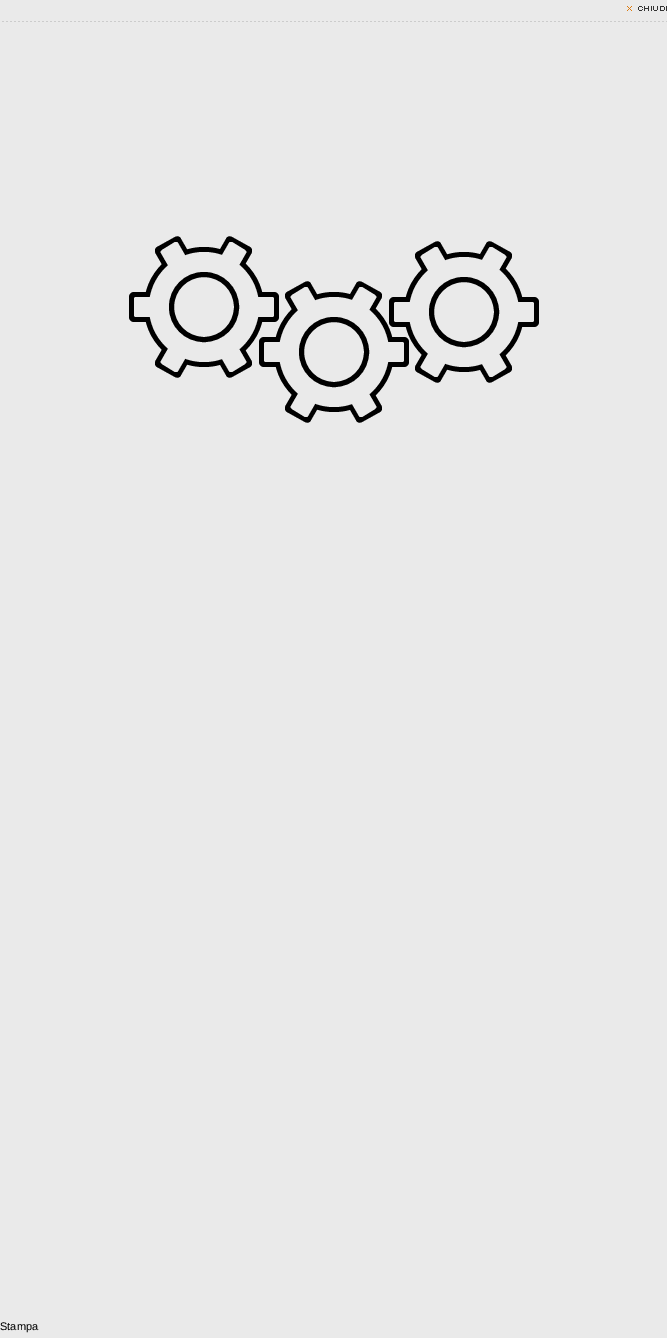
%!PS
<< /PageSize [667 1338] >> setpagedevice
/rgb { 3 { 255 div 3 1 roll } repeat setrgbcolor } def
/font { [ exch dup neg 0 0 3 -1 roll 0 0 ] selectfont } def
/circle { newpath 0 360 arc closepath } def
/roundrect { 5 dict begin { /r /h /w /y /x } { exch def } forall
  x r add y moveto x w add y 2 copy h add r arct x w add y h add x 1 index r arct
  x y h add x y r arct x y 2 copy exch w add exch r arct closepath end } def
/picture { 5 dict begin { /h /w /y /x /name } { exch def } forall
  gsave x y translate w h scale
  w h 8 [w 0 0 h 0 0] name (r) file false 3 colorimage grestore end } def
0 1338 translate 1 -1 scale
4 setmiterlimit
234 234 234 rgb
0 0 667 1338 rectfill
(img/1.rgb) 627 6 40 5 picture
(img/2.rgb) 2 21 665 1 picture
0 0 0 rgb
204 307 60 circle fill
129 292 150 30 5 roundrect fill
234 234 234 rgb
134 297 140 20 2 roundrect fill
0 0 0 rgb
181 239 moveto 251 360 lineto 253 363 252 366 250 367 curveto 232 377 lineto 230 378 227 378 226 375 curveto 156 254 lineto 154 251 155 248 157 247 curveto 175 237 lineto 177 236 180 236 181 239 curveto closepath fill
234 234 234 rgb
178 243 moveto 246 361 lineto 247 362 246 363 245 364 curveto 232 372 lineto 231 372 229 372 229 371 curveto 161 253 lineto 160 252 161 251 162 250 curveto 175 242 lineto 176 242 178 242 178 243 curveto closepath fill
0 0 0 rgb
251 254 moveto 181 375 lineto 180 378 177 378 175 377 curveto 157 367 lineto 155 366 154 363 156 360 curveto 226 239 lineto 227 236 230 236 232 237 curveto 250 247 lineto 252 248 253 251 251 254 curveto closepath fill
234 234 234 rgb
246 253 moveto 178 371 lineto 178 372 176 372 175 372 curveto 162 364 lineto 161 363 160 362 161 361 curveto 229 243 lineto 229 242 231 242 232 242 curveto 245 250 lineto 246 251 247 252 246 253 curveto closepath fill
204 307 55 circle fill
0 0 0 rgb
5 setlinewidth
204 307 32.5 circle stroke
334 352 60 circle fill
259 337 150 30 5 roundrect fill
234 234 234 rgb
264 342 140 20 2 roundrect fill
0 0 0 rgb
311 284 moveto 381 405 lineto 383 408 382 411 380 412 curveto 362 422 lineto 360 423 357 423 356 420 curveto 286 299 lineto 284 296 285 293 287 292 curveto 305 282 lineto 307 281 310 281 311 284 curveto closepath fill
234 234 234 rgb
308 288 moveto 376 406 lineto 377 407 376 408 375 409 curveto 362 417 lineto 361 417 359 417 359 416 curveto 291 298 lineto 290 297 291 296 292 295 curveto 305 287 lineto 306 287 308 287 308 288 curveto closepath fill
0 0 0 rgb
381 299 moveto 311 420 lineto 310 423 307 423 305 422 curveto 287 412 lineto 285 411 284 408 286 405 curveto 356 284 lineto 357 281 360 281 362 282 curveto 380 292 lineto 382 293 383 296 381 299 curveto closepath fill
234 234 234 rgb
376 298 moveto 308 416 lineto 308 417 306 417 305 417 curveto 292 409 lineto 291 408 290 407 291 406 curveto 359 288 lineto 359 287 361 287 362 287 curveto 375 295 lineto 376 296 377 297 376 298 curveto closepath fill
334 352 55 circle fill
0 0 0 rgb
334 352 32.5 circle stroke
464 312 60 circle fill
389 297 150 30 5 roundrect fill
234 234 234 rgb
394 302 140 20 2 roundrect fill
0 0 0 rgb
441 244 moveto 511 365 lineto 513 368 512 371 510 372 curveto 492 382 lineto 490 383 487 383 486 380 curveto 416 259 lineto 414 256 415 253 417 252 curveto 435 242 lineto 437 241 440 241 441 244 curveto closepath fill
234 234 234 rgb
438 248 moveto 506 366 lineto 507 367 506 368 505 369 curveto 492 377 lineto 491 377 489 377 489 376 curveto 421 258 lineto 420 257 421 256 422 255 curveto 435 247 lineto 436 247 438 247 438 248 curveto closepath fill
0 0 0 rgb
511 259 moveto 441 380 lineto 440 383 437 383 435 382 curveto 417 372 lineto 415 371 414 368 416 365 curveto 486 244 lineto 487 241 490 241 492 242 curveto 510 252 lineto 512 253 513 256 511 259 curveto closepath fill
234 234 234 rgb
506 258 moveto 438 376 lineto 438 377 436 377 435 377 curveto 422 369 lineto 421 368 420 367 421 366 curveto 489 248 lineto 489 247 491 247 492 247 curveto 505 255 lineto 506 256 507 257 506 258 curveto closepath fill
464 312 55 circle fill
0 0 0 rgb
464 312 32.5 circle stroke
/LiberationSans-Regular 11 font
0 1330 moveto (Stampa) show
showpage
